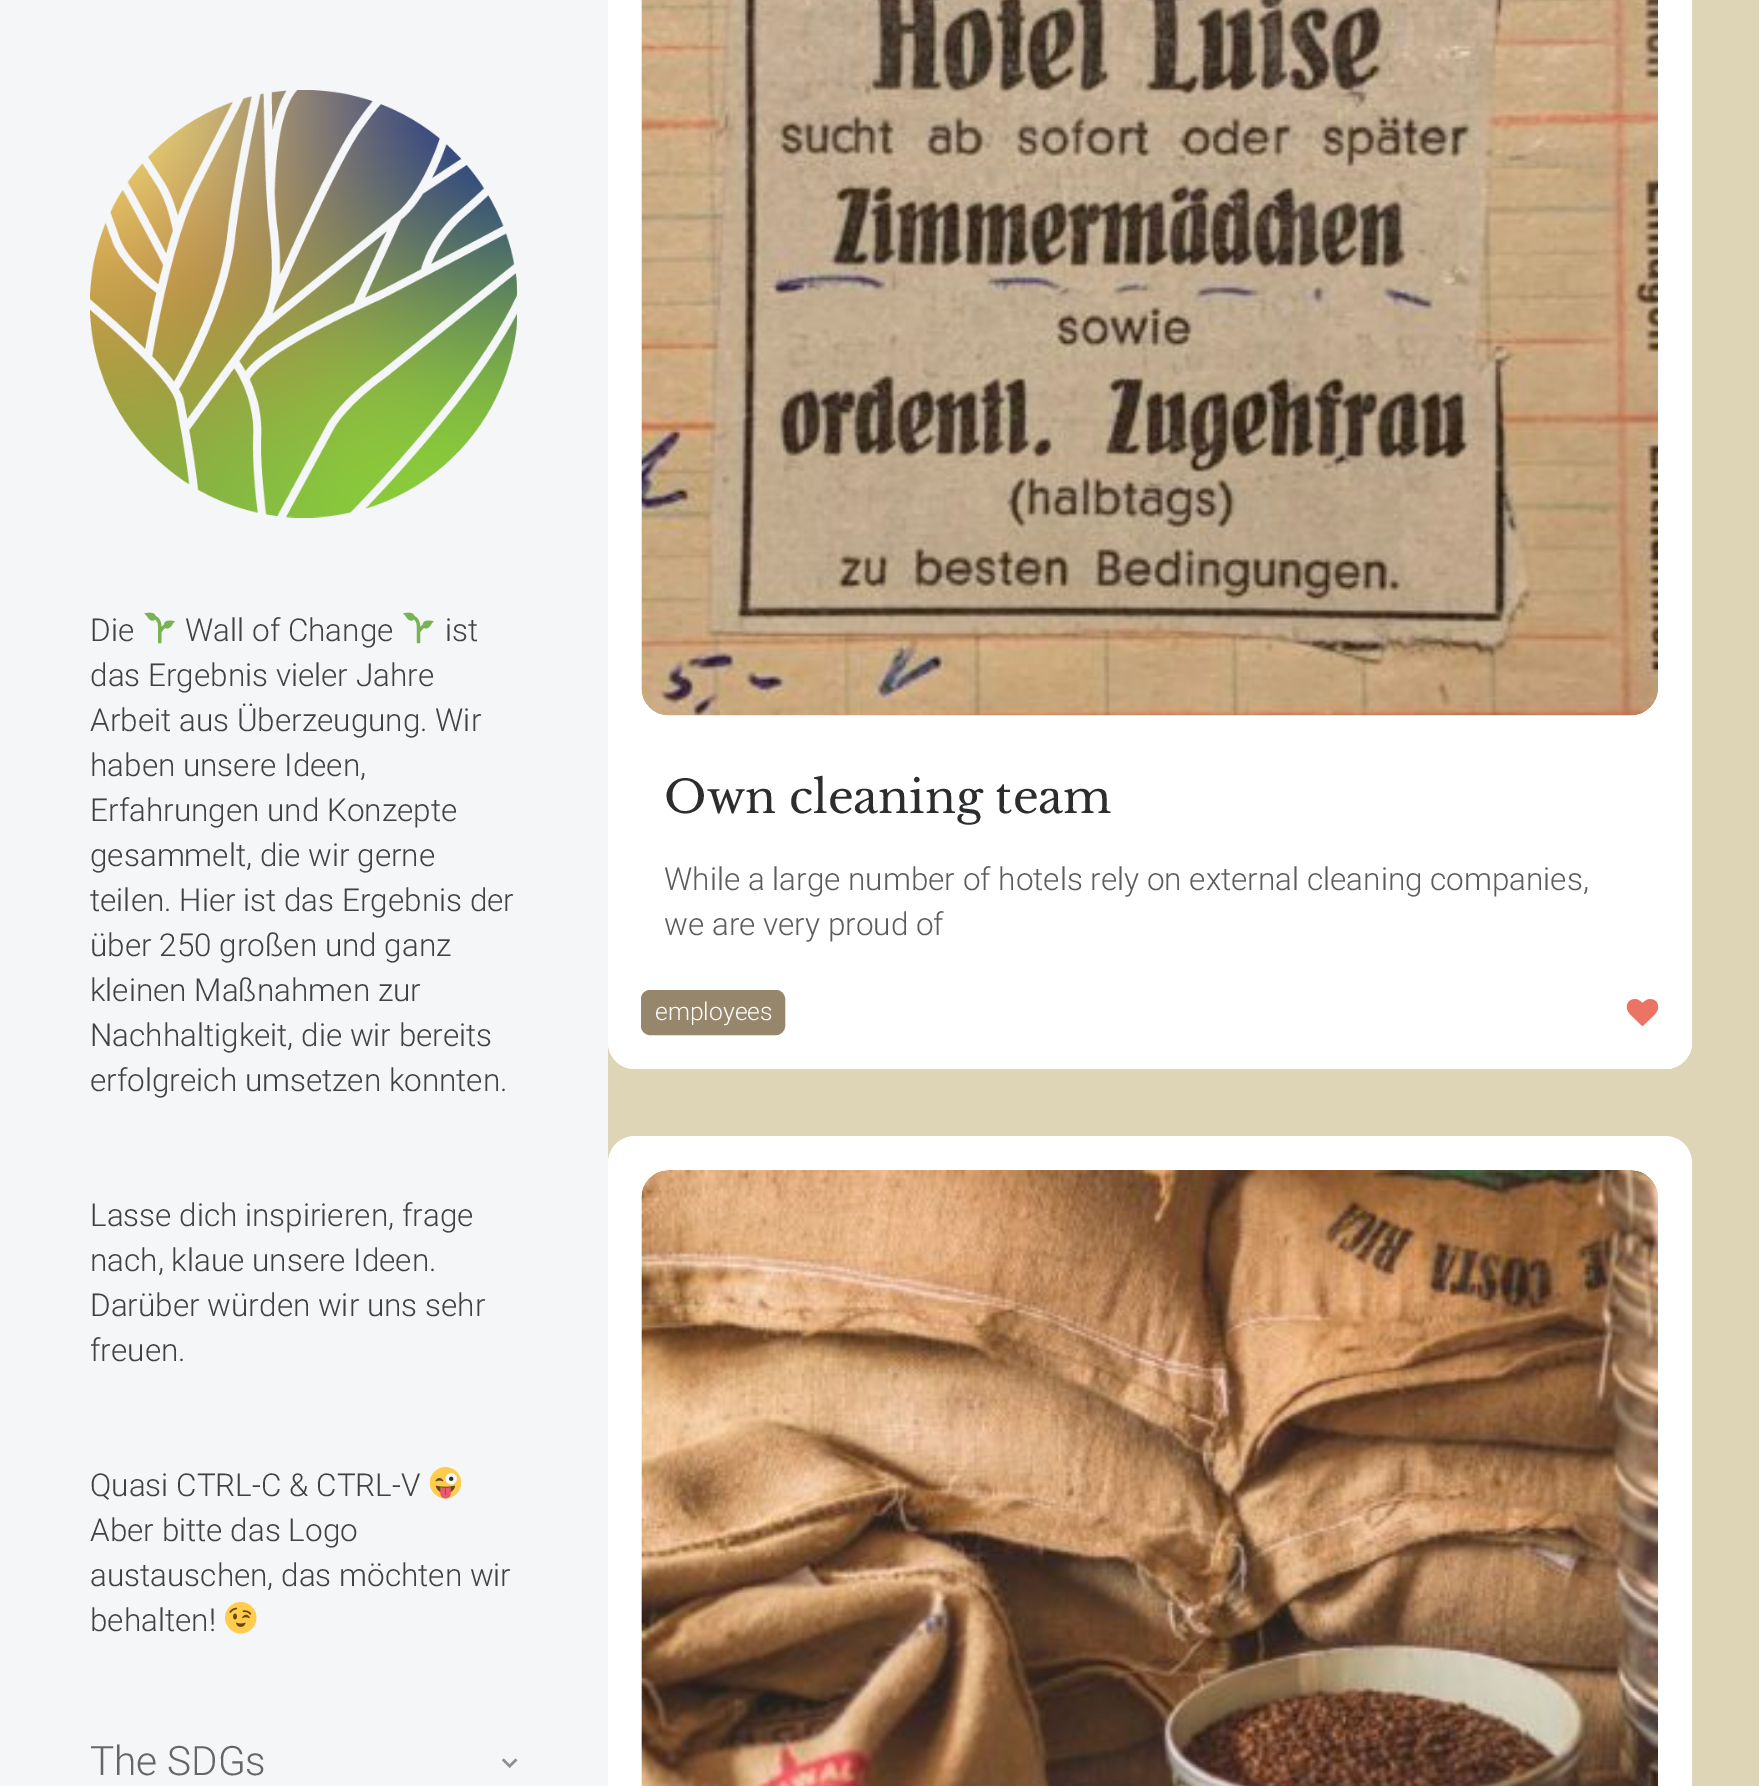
%!PS
<< /PageSize [1759 1786] >> setpagedevice
/rgb { 3 { 255 div 3 1 roll } repeat setrgbcolor } def
/font { [ exch dup neg 0 0 3 -1 roll 0 0 ] selectfont } def
/roundrect { 5 dict begin { /r /h /w /y /x } { exch def } forall
  x r add y moveto x w add y 2 copy h add r arct x w add y h add x 1 index r arct
  x y h add x y r arct x y 2 copy exch w add exch r arct closepath end } def
/picture { 5 dict begin { /h /w /y /x /name } { exch def } forall
  gsave x y translate w h scale
  w h 8 [w 0 0 h 0 0] name (r) file false 3 colorimage grestore end } def
0 1786 translate 1 -1 scale
4 setmiterlimit
221 213 181 rgb
0 0 1759 1786 rectfill
245 246 248 rgb
0 0 608 1786 rectfill
(img/1.rgb) 90 90 427 428 picture
(img/2.rgb) 144 612 31 32 picture
(img/3.rgb) 403 612 31 32 picture
(img/4.rgb) 430 1467 31 32 picture
(img/5.rgb) 225 1602 32 32 picture
(img/6.rgb) 501 1758 17 10 picture
255 255 255 rgb
608 -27 1084 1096 27 roundrect fill
(img/7.rgb) 641 0 1017 716 picture
608 956 moveto 1692 956 lineto 1692 1042 lineto 1692 1057 1680 1069 1665 1069 curveto 635 1069 lineto 620 1069 608 1057 608 1042 curveto closepath fill
150 135 108 rgb
642 991 142 43 8 roundrect gsave fill grestore
2 setlinewidth
stroke
255 255 255 rgb
1593 956 moveto 1692 956 lineto 1692 1042 lineto 1692 1057 1680 1069 1665 1069 curveto 1593 1069 lineto closepath fill
(img/8.rgb) 1626 999 33 27 picture
608 1136 1084 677 27 roundrect fill
(img/9.rgb) 641 1170 1017 616 picture
/Roboto-Light 31.5 font
66 66 66 rgb
[
  [(Die) 90 641]
  [(Wall of Change) 185 641]
  [(ist) 445 641]
  [(das Ergebnis vieler Jahre) 90 686]
  [(Arbeit aus Überzeugung. Wir) 90 731]
  [(haben unsere Ideen,) 90 776]
  [(Erfahrungen und Konzepte) 90 821]
  [(gesammelt, die wir gerne) 90 866]
  [(teilen. Hier ist das Ergebnis der) 90 911]
  [(über 250 großen und ganz) 90 956]
  [(kleinen Maßnahmen zur) 90 1001]
  [(Nachhaltigkeit, die wir bereits) 90 1046]
  [(erfolgreich umsetzen konnten.) 90 1091]
  [(Lasse dich inspirieren, frage) 90 1226]
  [(nach, klaue unsere Ideen.) 90 1271]
  [(Darüber würden wir uns sehr) 90 1316]
  [(freuen.) 90 1361]
  [(Quasi CTRL-C & CTRL-V) 90 1496]
  [(Aber bitte das Logo) 90 1541]
  [(austauschen, das möchten wir) 90 1586]
  [(behalten!) 90 1631]
] { aload pop moveto show } forall
/Roboto-Light 40.5 font
102 102 102 rgb
90 1775 moveto (The SDGs) show
/LibreBaskerville-Regular 45 font
44 45 47 rgb
664 813 moveto (Own cleaning team) show
/Roboto-Light 31.5 font
92 92 92 rgb
664 890 moveto (While a large number of hotels rely on external cleaning companies,) show
664 935 moveto (we are very proud of) show
/Roboto-Light 24.75 font
255 255 255 rgb
655 1020 moveto (employees) show
showpage
